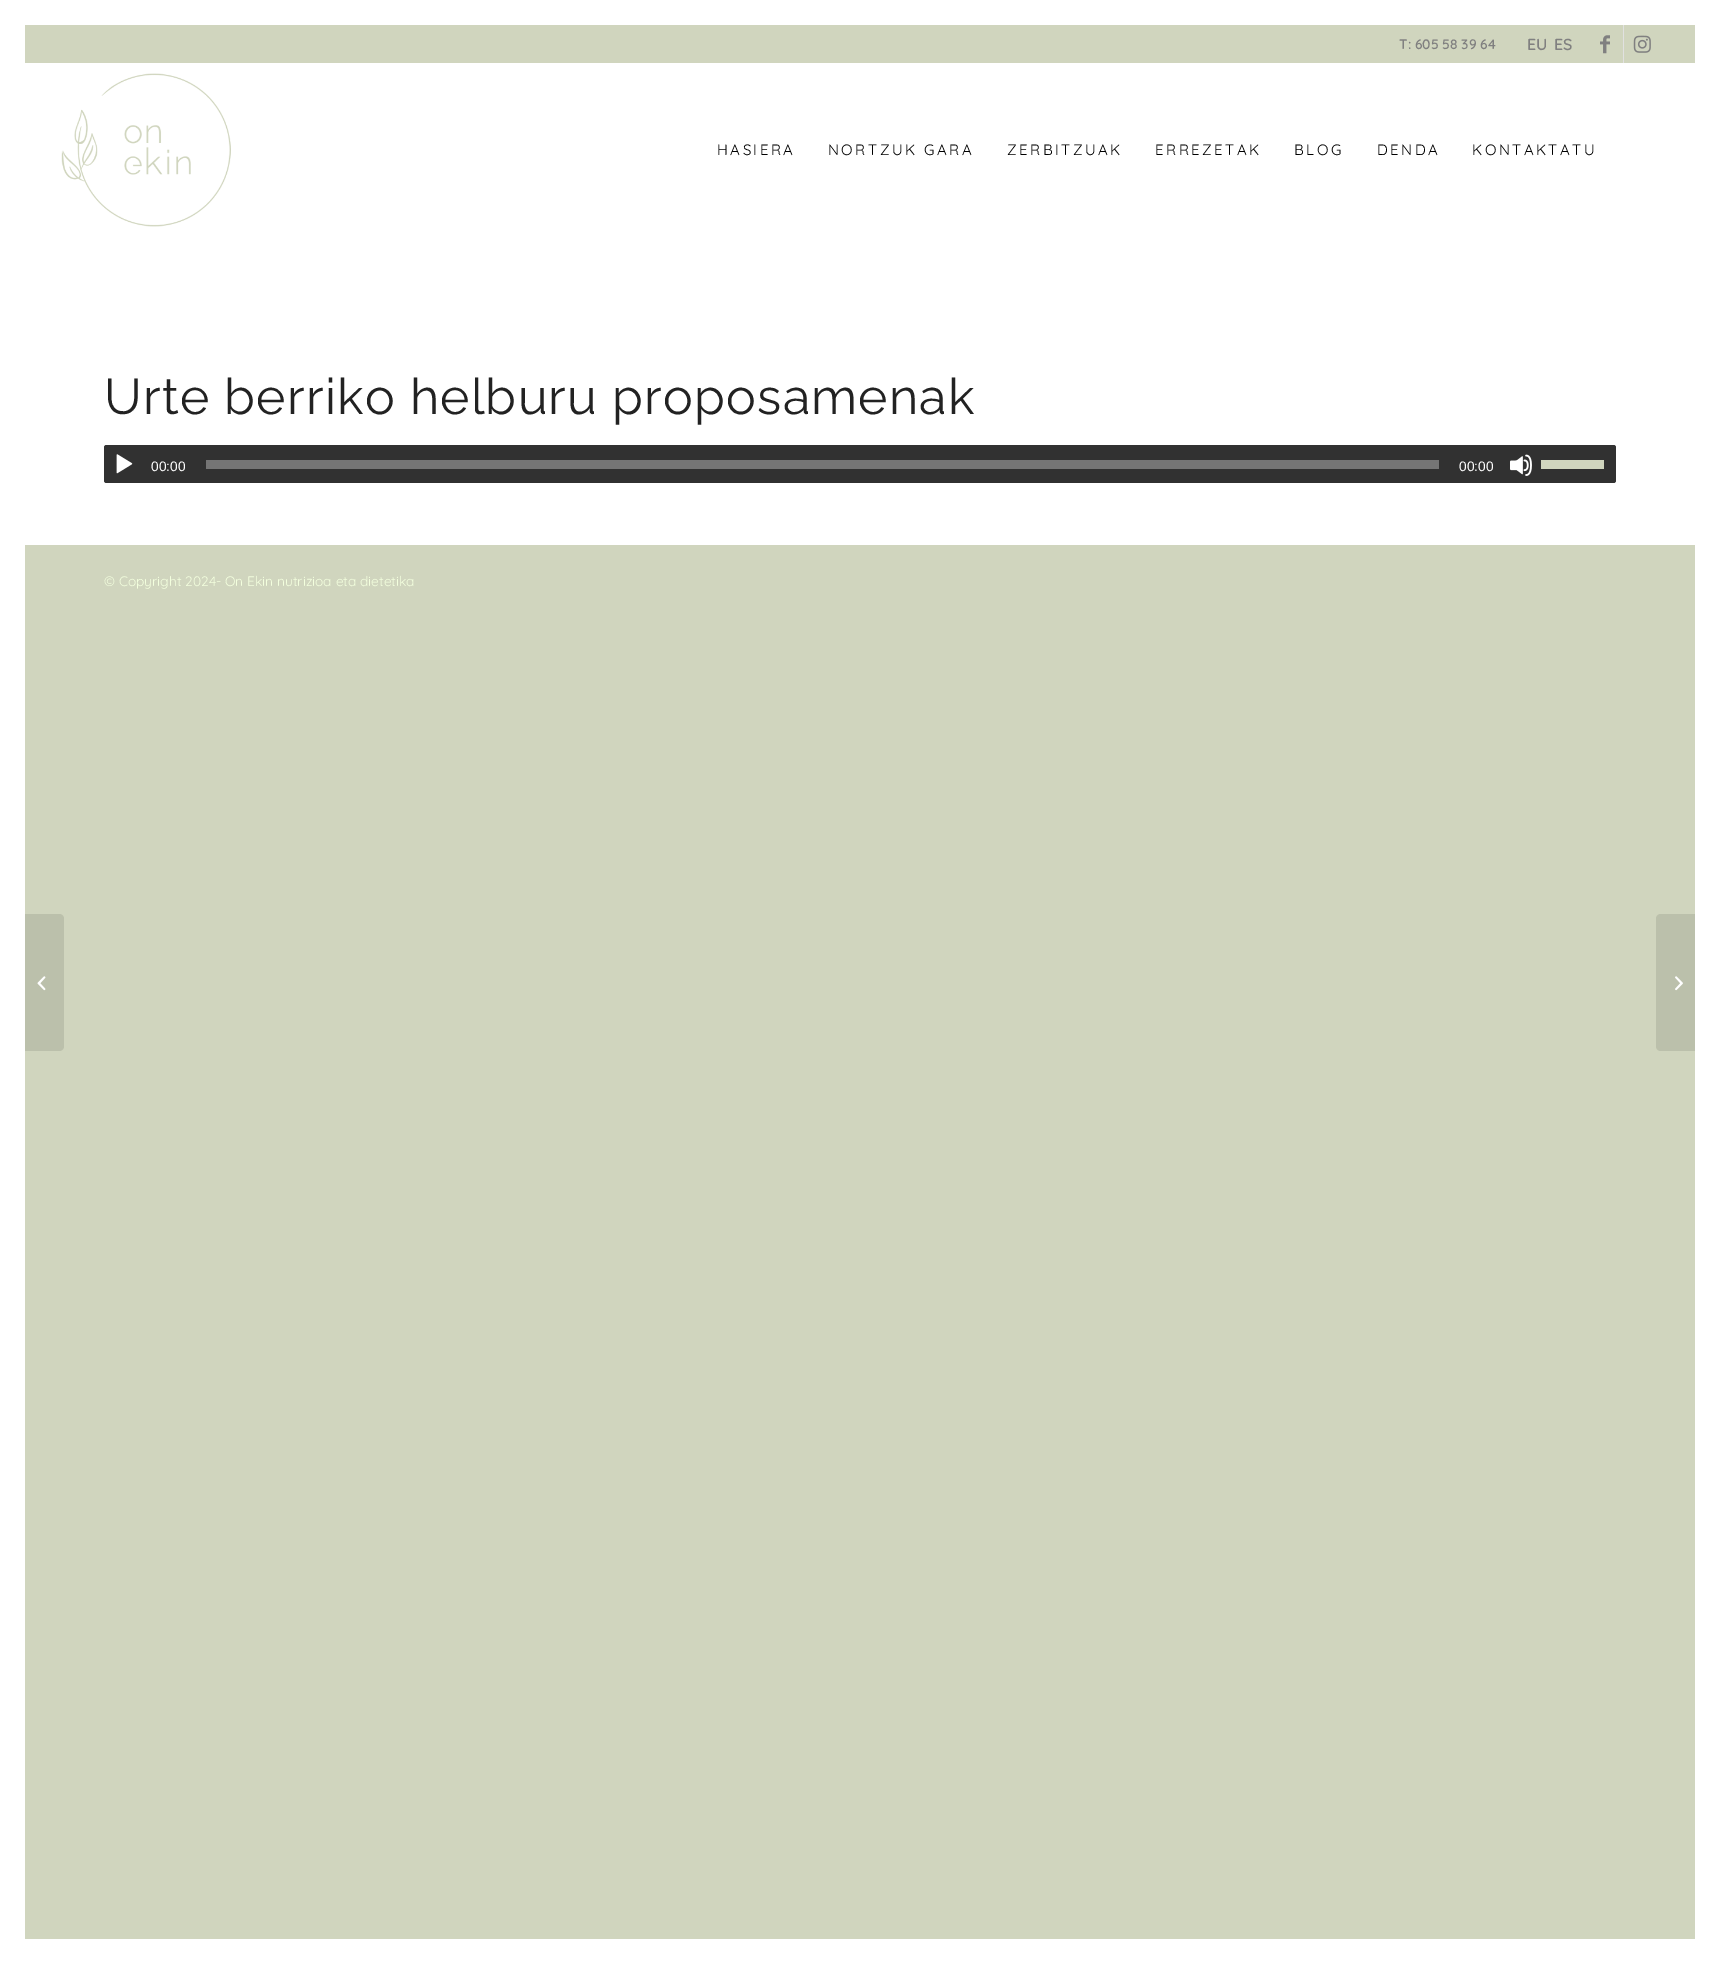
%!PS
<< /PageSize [1719 1963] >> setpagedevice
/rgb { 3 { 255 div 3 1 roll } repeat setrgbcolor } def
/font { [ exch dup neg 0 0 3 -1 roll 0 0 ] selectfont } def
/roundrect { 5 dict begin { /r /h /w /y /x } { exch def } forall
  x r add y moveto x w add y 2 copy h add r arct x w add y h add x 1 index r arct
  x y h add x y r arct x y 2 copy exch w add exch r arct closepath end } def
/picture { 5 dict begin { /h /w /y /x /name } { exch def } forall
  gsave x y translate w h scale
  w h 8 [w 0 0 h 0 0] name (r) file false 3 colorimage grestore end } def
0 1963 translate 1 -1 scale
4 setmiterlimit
208 213 190 rgb
0 0 1719 1963 rectfill
[
  [0 0 25 1963 255 255 255]
  [25 0 1670 25 255 255 255]
  [1695 0 24 1963 255 255 255]
  [1623 25 1 38 225 225 225]
] { aload pop rgb rectfill } forall
(img/1.rgb) 1600 35 10 19 picture
(img/2.rgb) 1633 35 18 18 picture
255 255 255 rgb
25 63 1670 482 rectfill
(img/3.rgb) 61 73 170 154 picture
49 49 49 rgb
104 445 1512 38 2.5 roundrect fill
(img/4.rgb) 116 454 17 20 picture
117 117 117 rgb
206 460 1233 9 rectfill
(img/5.rgb) 1510 454 22 22 picture
208 213 190 rgb
1541 460 63 9 rectfill
187 192 171 rgb
25 914 moveto 59 914 lineto 62 914 64 916 64 919 curveto 64 1046 lineto 64 1049 62 1051 59 1051 curveto 25 1051 lineto closepath fill
(img/6.rgb) 37 976 9 15 picture
1661 914 moveto 1695 914 lineto 1695 1051 lineto 1661 1051 lineto 1658 1051 1656 1049 1656 1046 curveto 1656 919 lineto 1656 916 1658 914 1661 914 curveto closepath fill
(img/7.rgb) 1675 976 8 15 picture
255 255 255 rgb
25 1939 1670 24 rectfill
/Quicksand-SemiBold 13.75 font
128 128 128 rgb
1399 49 moveto (T: 605 58 39 64) show
/Quicksand-SemiBold 16 font
1527 50 moveto (EU) show
1554 50 moveto (ES) show
/Quicksand-Regular 15 font
0 0 0 rgb
717 155 moveto 2.5 0 (HASIERA) ashow
828 155 moveto 2.5 0 (NORTZUK GARA) ashow
1007 155 moveto 2.5 0 (ZERBITZUAK) ashow
1155 155 moveto 2.5 0 (ERREZETAK) ashow
1294 155 moveto 2.5 0 (BLOG) ashow
1377 155 moveto 2.5 0 (DENDA) ashow
1472 155 moveto 2.5 0 (KONTAKTATU) ashow
/Raleway-Thin 50 font
34 34 34 rgb
104 414 moveto 1.25 0 (Urte berriko helburu proposamenak) ashow
/LiberationSans-Regular 13.75 font
255 255 255 rgb
151 471 moveto (00:00) show
1459 471 moveto (00:00) show
/Quicksand-Regular 13.75 font
243 255 222 rgb
104 586 moveto (© Copyright 2024- On Ekin nutrizioa eta dietetika) show
showpage
